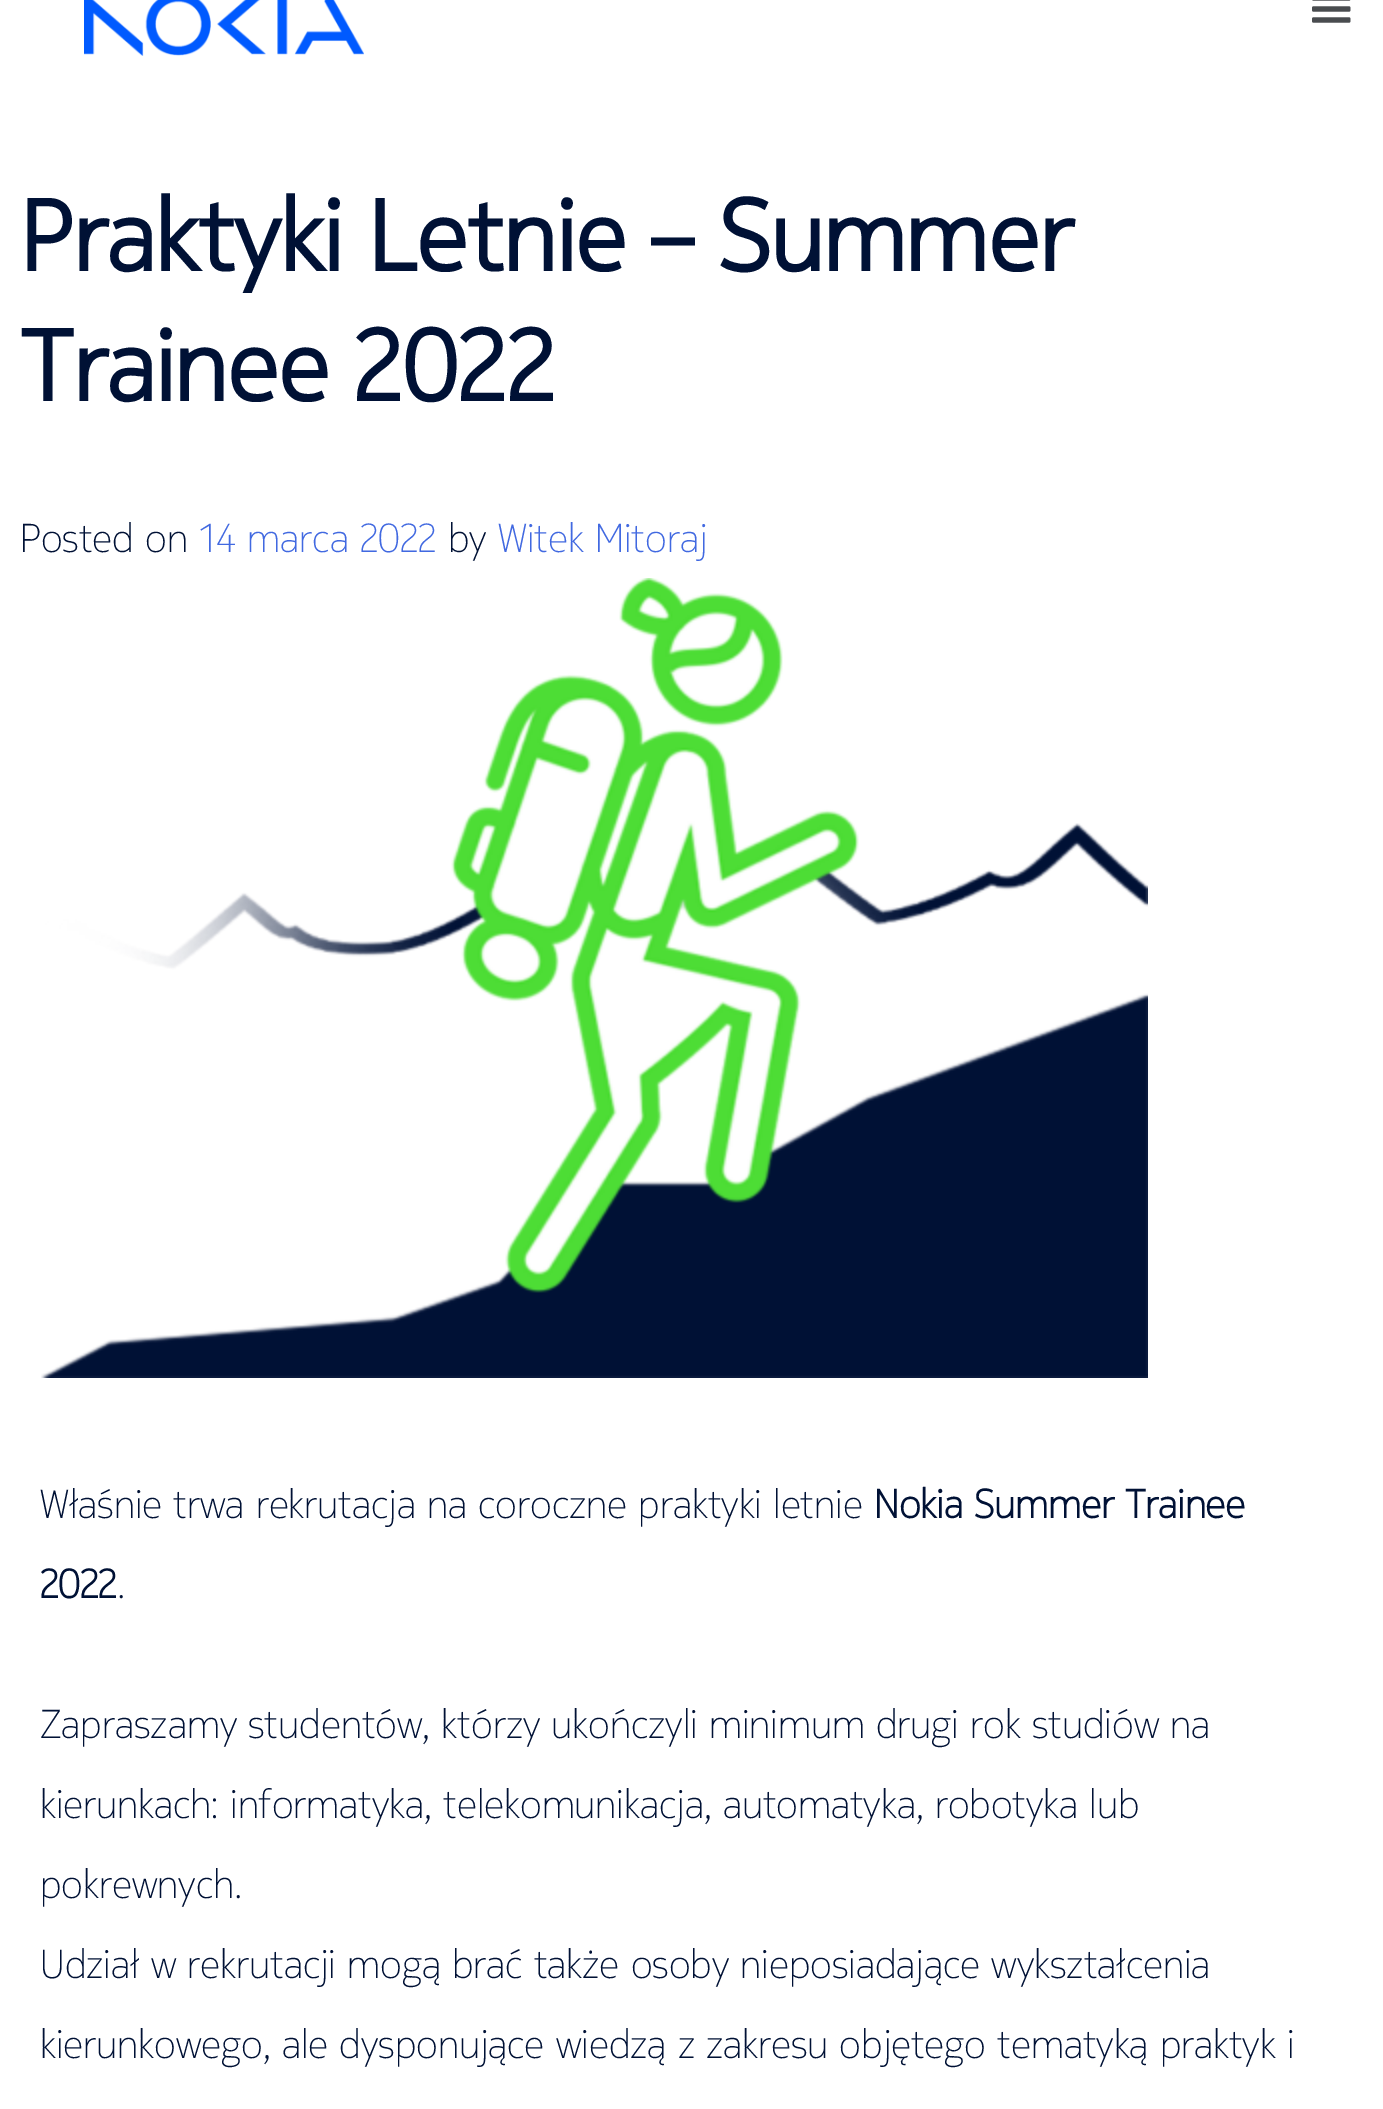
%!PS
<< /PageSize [1383 2109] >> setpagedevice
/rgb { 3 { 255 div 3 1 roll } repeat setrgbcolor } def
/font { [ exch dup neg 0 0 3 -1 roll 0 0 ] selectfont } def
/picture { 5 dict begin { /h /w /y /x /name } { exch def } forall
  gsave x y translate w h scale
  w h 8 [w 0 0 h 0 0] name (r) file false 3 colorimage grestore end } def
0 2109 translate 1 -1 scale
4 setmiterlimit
255 255 255 rgb
0 0 1383 2109 rectfill
(img/1.rgb) 84 0 280 56 picture
(img/2.rgb) 1312 0 39 23 picture
(img/3.rgb) 41 578 1107 800 picture
/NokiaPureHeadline-Bold 100 font
0 17 53 rgb
20 271 moveto (Praktyki Letnie – Summer) show
20 401 moveto (Trainee 2022) show
/NokiaPureHeadline-ExtraLight 40 font
20 552 moveto (Posted on) show
65 105 225 rgb
199 552 moveto (14 marca 2022) show
0 17 53 rgb
448 552 moveto (by) show
65 105 225 rgb
498 552 moveto (Witek Mitoraj) show
0 17 53 rgb
40 1518 moveto (Właśnie trwa rekrutacja na coroczne praktyki letnie) show
/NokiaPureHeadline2-Bold 40 font
874 1518 moveto (Nokia Summer Trainee) show
40 1598 moveto (2022) show
/NokiaPureHeadline-ExtraLight 40 font
[
  [(.) 117 1598]
  [(Zapraszamy studentów, którzy ukończyli minimum drugi rok studiów na) 40 1738]
  [(kierunkach: informatyka, telekomunikacja, automatyka, robotyka lub) 40 1818]
  [(pokrewnych.) 40 1898]
  [(Udział w rekrutacji mogą brać także osoby nieposiadające wykształcenia) 40 1978]
  [(kierunkowego, ale dysponujące wiedzą z zakresu objętego tematyką praktyk i) 40 2058]
] { aload pop moveto show } forall
showpage
